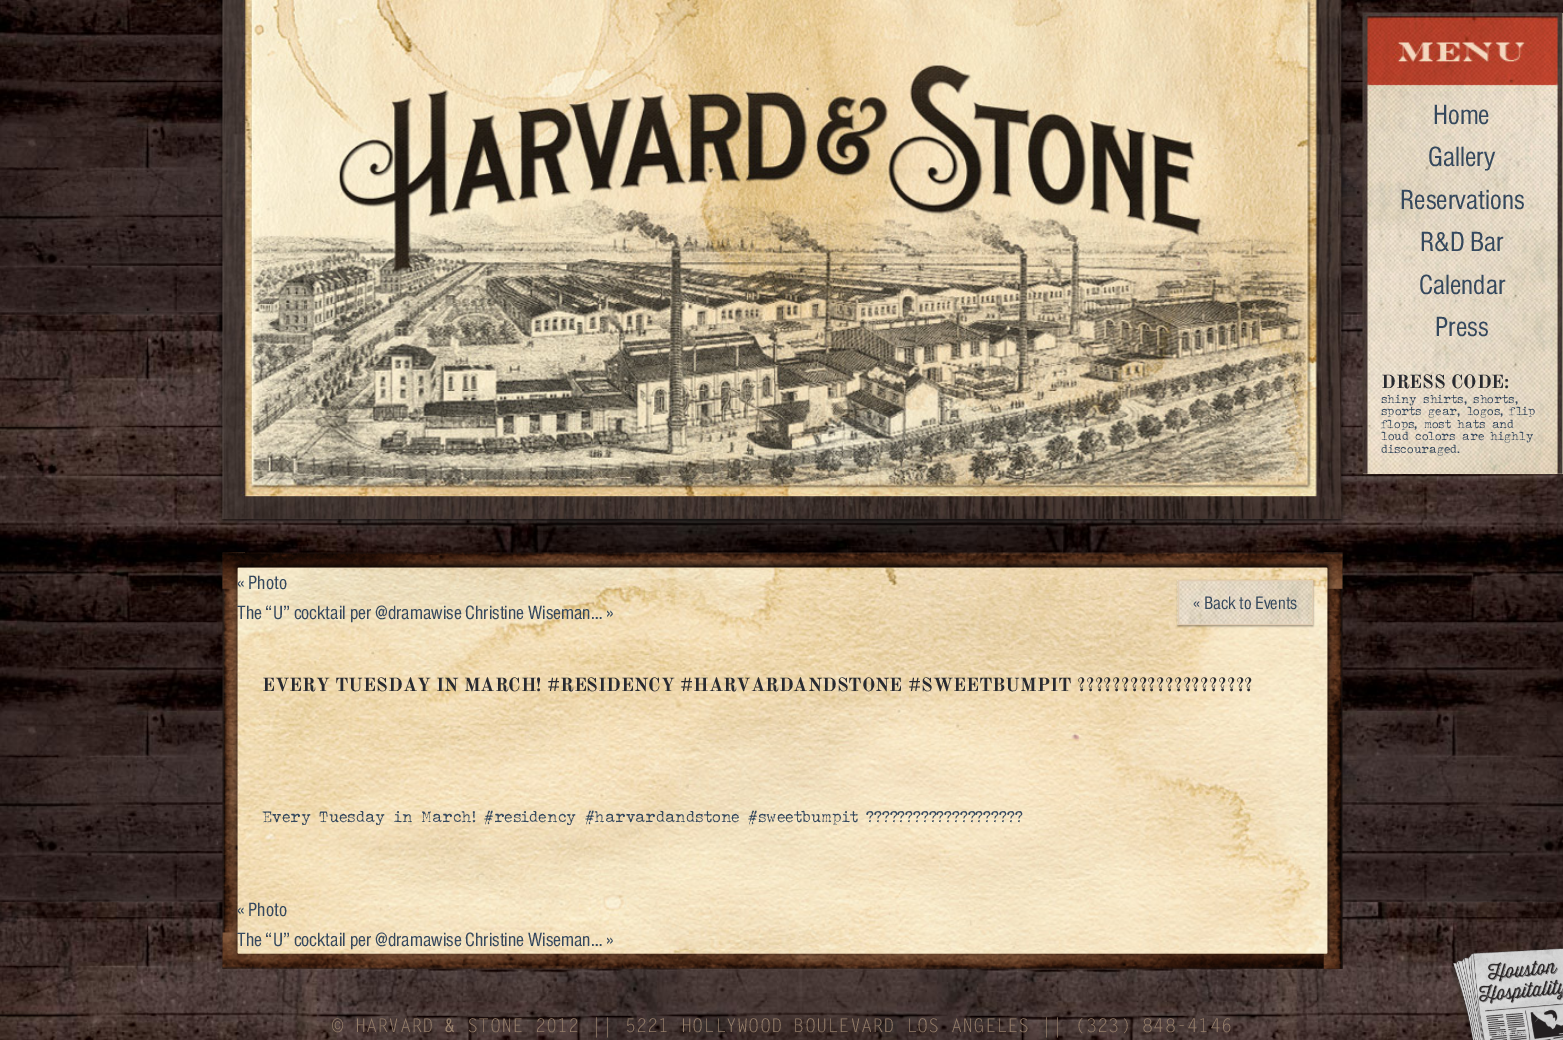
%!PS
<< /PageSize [1563 1040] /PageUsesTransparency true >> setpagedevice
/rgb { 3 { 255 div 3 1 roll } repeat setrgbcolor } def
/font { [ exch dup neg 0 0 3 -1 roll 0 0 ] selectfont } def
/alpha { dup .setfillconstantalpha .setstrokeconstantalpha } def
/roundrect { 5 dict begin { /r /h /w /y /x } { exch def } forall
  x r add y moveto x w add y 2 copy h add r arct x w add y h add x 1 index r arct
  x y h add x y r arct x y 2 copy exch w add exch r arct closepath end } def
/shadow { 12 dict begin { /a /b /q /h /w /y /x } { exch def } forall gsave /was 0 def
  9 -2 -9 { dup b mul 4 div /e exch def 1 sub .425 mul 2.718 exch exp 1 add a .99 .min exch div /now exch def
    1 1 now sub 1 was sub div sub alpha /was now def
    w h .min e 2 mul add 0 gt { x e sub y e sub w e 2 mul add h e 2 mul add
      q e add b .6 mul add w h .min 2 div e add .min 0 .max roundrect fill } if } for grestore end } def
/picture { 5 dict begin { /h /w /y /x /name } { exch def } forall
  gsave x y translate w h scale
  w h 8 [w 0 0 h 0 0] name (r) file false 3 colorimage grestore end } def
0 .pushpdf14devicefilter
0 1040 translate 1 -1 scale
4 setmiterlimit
255 255 255 rgb
0 0 1563 1040 rectfill
(img/1.rgb) 0 0 1563 1040 picture
0 0 0 rgb
223 1 1118 519 0 3 1 shadow
(img/2.rgb) 222 0 1120 519 picture
227 216 192 rgb
1363 13 200 461 rectfill
(img/3.rgb) 1362 12 201 462 picture
(img/4.rgb) 222 552 1121 417 picture
0 0 0 rgb
238 565 1090 386 1 3 1 shadow
(img/5.rgb) 237 567 1091 387 picture
1178 581 135 45 0 1 0.5 shadow
(img/6.rgb) 1177 580 135 45 picture
225 204 178 rgb
1178.5 580.5 134 44 rectstroke
(img/7.rgb) 1450 948 113 92 picture
/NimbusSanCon-Regular 28.75 font
53 72 93 rgb
[
  [(Home) 1433 124]
  [(Gallery) 1428 166]
  [(Reservations) 1400 209]
  [(R&D Bar) 1420 251]
  [(Calendar) 1419 294]
  [(Press) 1435 336]
] { aload pop moveto show } forall
/OldStandardTT-Bold 18.75 font
40 42 48 rgb
1381 388 moveto (DRESS CODE:) show
/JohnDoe-Regular 11.25 font
53 72 93 rgb
[
  [(shiny shirts, shorts,) 1381 403]
  [(sports gear, logos, flip) 1381 415]
  [(flops, most hats and) 1381 428]
  [(loud colors are highly) 1381 440]
  [(discouraged.) 1381 453]
] { aload pop moveto show } forall
/NimbusSanCon-Regular 20 font
237 589 moveto (« Photo) show
237 619 moveto (The “U” cocktail per @dramawise Christine Wiseman… ») show
/NimbusSanCon-Regular 18.75 font
1193 609 moveto (« Back to Events) show
/OldStandardTT-Bold 18.75 font
40 42 48 rgb
262 691 moveto (EVERY TUESDAY IN MARCH! #RESIDENCY #HARVARDANDSTONE #SWEETBUMPIT ????????????????????) show
/JohnDoe-Regular 15 font
53 72 93 rgb
262 822 moveto (Every Tuesday in March! #residency #harvardandstone #sweetbumpit ????????????????????) show
/NimbusSanCon-Regular 20 font
237 916 moveto (« Photo) show
237 946 moveto (The “U” cocktail per @dramawise Christine Wiseman… ») show
/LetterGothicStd-Regular 18.75 font
151 128 107 rgb
332 1032 moveto (© HARVARD) show
/LetterGothicStd-Bold 18.75 font
444 1032 moveto (&) show
/LetterGothicStd-Regular 18.75 font
467 1032 moveto (STONE 2012 || 5221 HOLLYWOOD BOULEVARD LOS ANGELES || \(323\) 848-4146) show
.poppdf14devicefilter showpage
